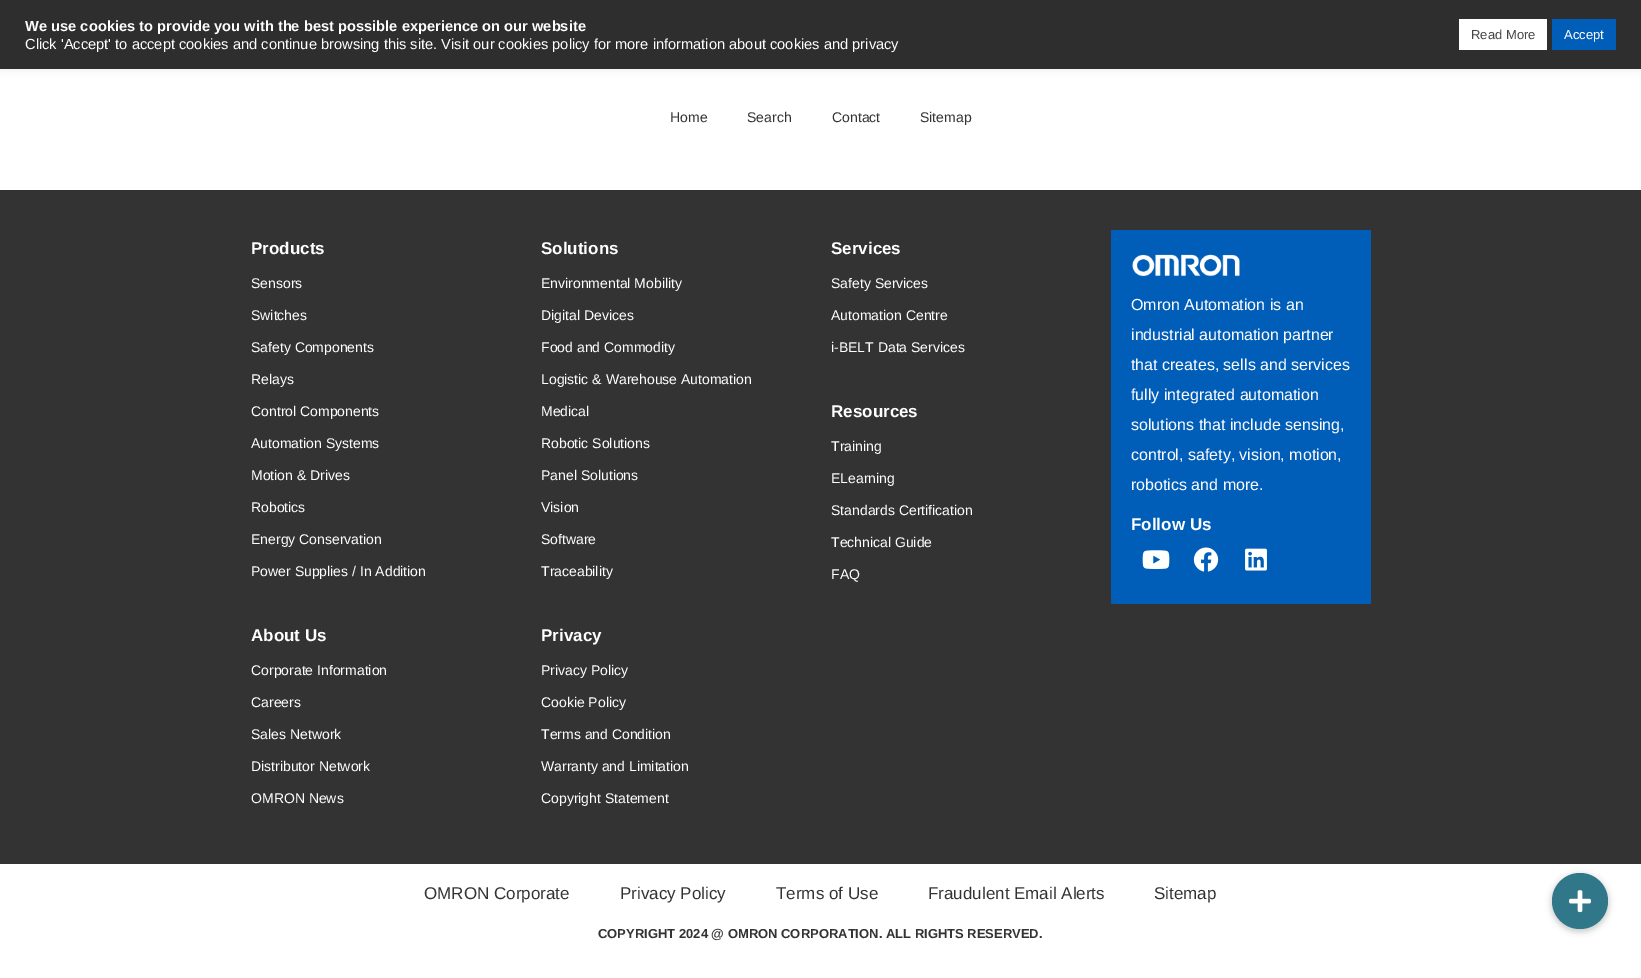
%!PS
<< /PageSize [1641 978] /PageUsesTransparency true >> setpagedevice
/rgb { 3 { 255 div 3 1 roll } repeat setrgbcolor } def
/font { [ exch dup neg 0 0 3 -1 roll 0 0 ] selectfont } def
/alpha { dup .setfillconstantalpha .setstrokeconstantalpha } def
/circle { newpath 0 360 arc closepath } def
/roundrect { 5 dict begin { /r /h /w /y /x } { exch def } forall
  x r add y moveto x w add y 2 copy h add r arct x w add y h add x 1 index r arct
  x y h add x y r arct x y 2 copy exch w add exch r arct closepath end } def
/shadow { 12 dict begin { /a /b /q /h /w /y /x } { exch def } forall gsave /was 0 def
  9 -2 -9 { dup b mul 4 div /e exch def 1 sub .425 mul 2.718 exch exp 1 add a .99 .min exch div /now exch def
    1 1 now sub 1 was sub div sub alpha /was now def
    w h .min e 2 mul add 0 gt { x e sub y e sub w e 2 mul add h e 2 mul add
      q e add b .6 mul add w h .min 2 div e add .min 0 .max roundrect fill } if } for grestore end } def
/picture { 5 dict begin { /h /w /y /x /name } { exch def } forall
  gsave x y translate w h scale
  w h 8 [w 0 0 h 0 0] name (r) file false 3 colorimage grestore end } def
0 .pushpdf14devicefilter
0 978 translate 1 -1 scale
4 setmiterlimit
255 255 255 rgb
0 0 1641 978 rectfill
172 171 171 rgb
0 -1 1641 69 0 5 0.3 shadow
[
  [0 0 1641 69 46 46 46]
  [1459 19 88 31 255 255 255]
  [1552 19 64 31 0 94 184]
  [0 190 1641 674 51 51 51]
  [1111 230 260 374 0 94 184]
] { aload pop rgb rectfill } forall
(img/1.rgb) 1132 254 108 23 picture
(img/2.rgb) 1142 550 28 19 picture
(img/3.rgb) 1193 547 26 25 picture
(img/4.rgb) 1245 548 22 23 picture
0 0 0 rgb
1551 874 58 58 29 3 0.2 shadow
47 119 137 rgb
1580 901 28 circle fill
(img/5.rgb) 1569 890 22 23 picture
/LiberationSans-Bold 14.67 font
255 255 255 rgb
25 31 moveto (We use cookies to provide you with the best possible experience on our website) show
/LiberationSans-Regular 14.67 font
25 49 moveto (Click 'Accept' to accept cookies and continue browsing this site. Visit our cookies policy for more information about cookies and privacy) show
/LiberationSans-Regular 13 font
68 68 68 rgb
1471 39 moveto (Read More) show
255 255 255 rgb
1564 39 moveto (Accept) show
/LiberationSans-Regular 14 font
51 51 51 rgb
[
  [(Home) 670 122]
  [(Search) 747 122]
  [(Contact) 832 122]
  [(Sitemap) 920 122]
] { aload pop moveto show } forall
/LiberationSans-Bold 17 font
255 255 255 rgb
251 254 moveto (Products) show
/LiberationSans-Regular 14 font
[
  [(Sensors) 251 288]
  [(Switches) 251 320]
  [(Safety Components) 251 352]
  [(Relays) 251 384]
  [(Control Components) 251 416]
  [(Automation Systems) 251 448]
  [(Motion & Drives) 251 480]
  [(Robotics) 251 512]
  [(Energy Conservation) 251 544]
  [(Power Supplies / In Addition) 251 576]
] { aload pop moveto show } forall
/LiberationSans-Bold 17 font
251 641 moveto (About Us) show
/LiberationSans-Regular 14 font
[
  [(Corporate Information) 251 675]
  [(Careers) 251 707]
  [(Sales Network) 251 739]
  [(Distributor Network) 251 771]
  [(OMRON News) 251 803]
] { aload pop moveto show } forall
/LiberationSans-Bold 17 font
541 254 moveto (Solutions) show
/LiberationSans-Regular 14 font
[
  [(Environmental Mobility) 541 288]
  [(Digital Devices) 541 320]
  [(Food and Commodity) 541 352]
  [(Logistic & Warehouse Automation) 541 384]
  [(Medical) 541 416]
  [(Robotic Solutions) 541 448]
  [(Panel Solutions) 541 480]
  [(Vision) 541 512]
  [(Software) 541 544]
  [(Traceability) 541 576]
] { aload pop moveto show } forall
/LiberationSans-Bold 17 font
541 641 moveto (Privacy) show
/LiberationSans-Regular 14 font
[
  [(Privacy Policy) 541 675]
  [(Cookie Policy) 541 707]
  [(Terms and Condition) 541 739]
  [(Warranty and Limitation) 541 771]
  [(Copyright Statement) 541 803]
] { aload pop moveto show } forall
/LiberationSans-Bold 17 font
831 254 moveto (Services) show
/LiberationSans-Regular 14 font
[
  [(Safety Services) 831 288]
  [(Automation Centre) 831 320]
  [(i-BELT Data Services) 831 352]
] { aload pop moveto show } forall
/LiberationSans-Bold 17 font
831 417 moveto (Resources) show
/LiberationSans-Regular 14 font
[
  [(Training) 831 451]
  [(ELearning) 831 483]
  [(Standards Certification) 831 515]
  [(Technical Guide) 831 547]
  [(FAQ) 831 579]
] { aload pop moveto show } forall
/LiberationSans-Regular 16 font
[
  [(Omron Automation is an) 1131 310]
  [(industrial automation partner) 1131 340]
  [(that creates, sells and services) 1131 370]
  [(fully integrated automation) 1131 400]
  [(solutions that include sensing,) 1131 430]
  [(control, safety, vision, motion,) 1131 460]
  [(robotics and more.) 1131 490]
] { aload pop moveto show } forall
/LiberationSans-Bold 17 font
1131 530 moveto (Follow Us) show
/LiberationSans-Regular 17 font
51 51 51 rgb
[
  [(OMRON Corporate) 424 899]
  [(Privacy Policy) 620 899]
  [(Terms of Use) 776 899]
  [(Fraudulent Email Alerts) 928 899]
  [(Sitemap) 1154 899]
] { aload pop moveto show } forall
/LiberationSans-Bold 13 font
598 938 moveto (COPYRIGHT 2024 @ OMRON CORPORATION. ALL RIGHTS RESERVED.) show
.poppdf14devicefilter showpage
